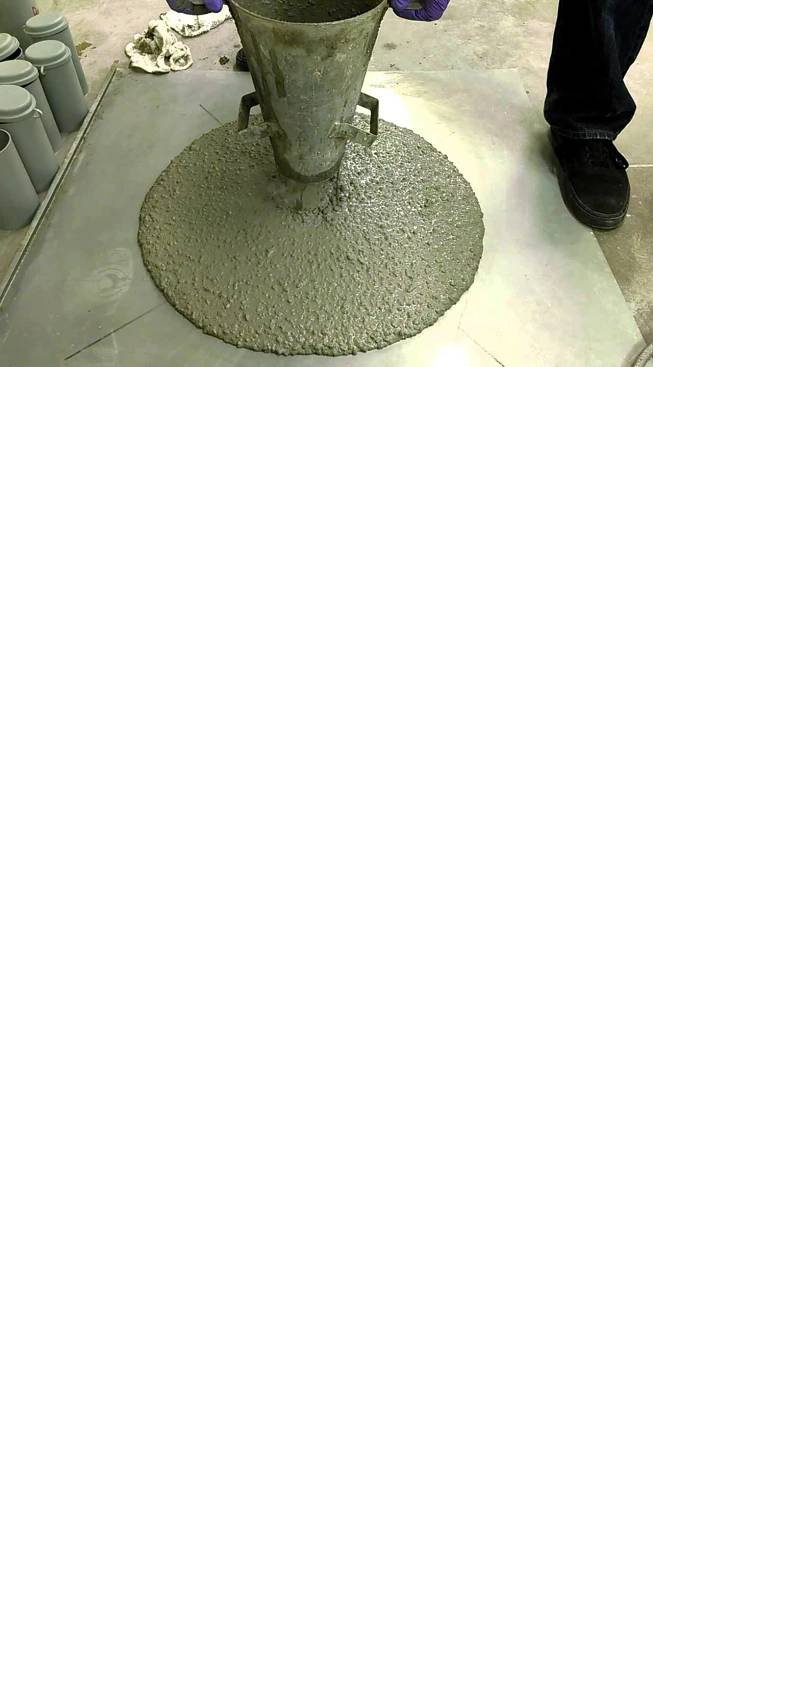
%!PS
<< /PageSize [812 1686] >> setpagedevice
/rgb { 3 { 255 div 3 1 roll } repeat setrgbcolor } def
/picture { 5 dict begin { /h /w /y /x /name } { exch def } forall
  gsave x y translate w h scale
  w h 8 [w 0 0 h 0 0] name (r) file false 3 colorimage grestore end } def
0 1686 translate 1 -1 scale
4 setmiterlimit
255 255 255 rgb
0 0 812 1686 rectfill
(img/1.rgb) 0 0 653 367 picture
showpage
